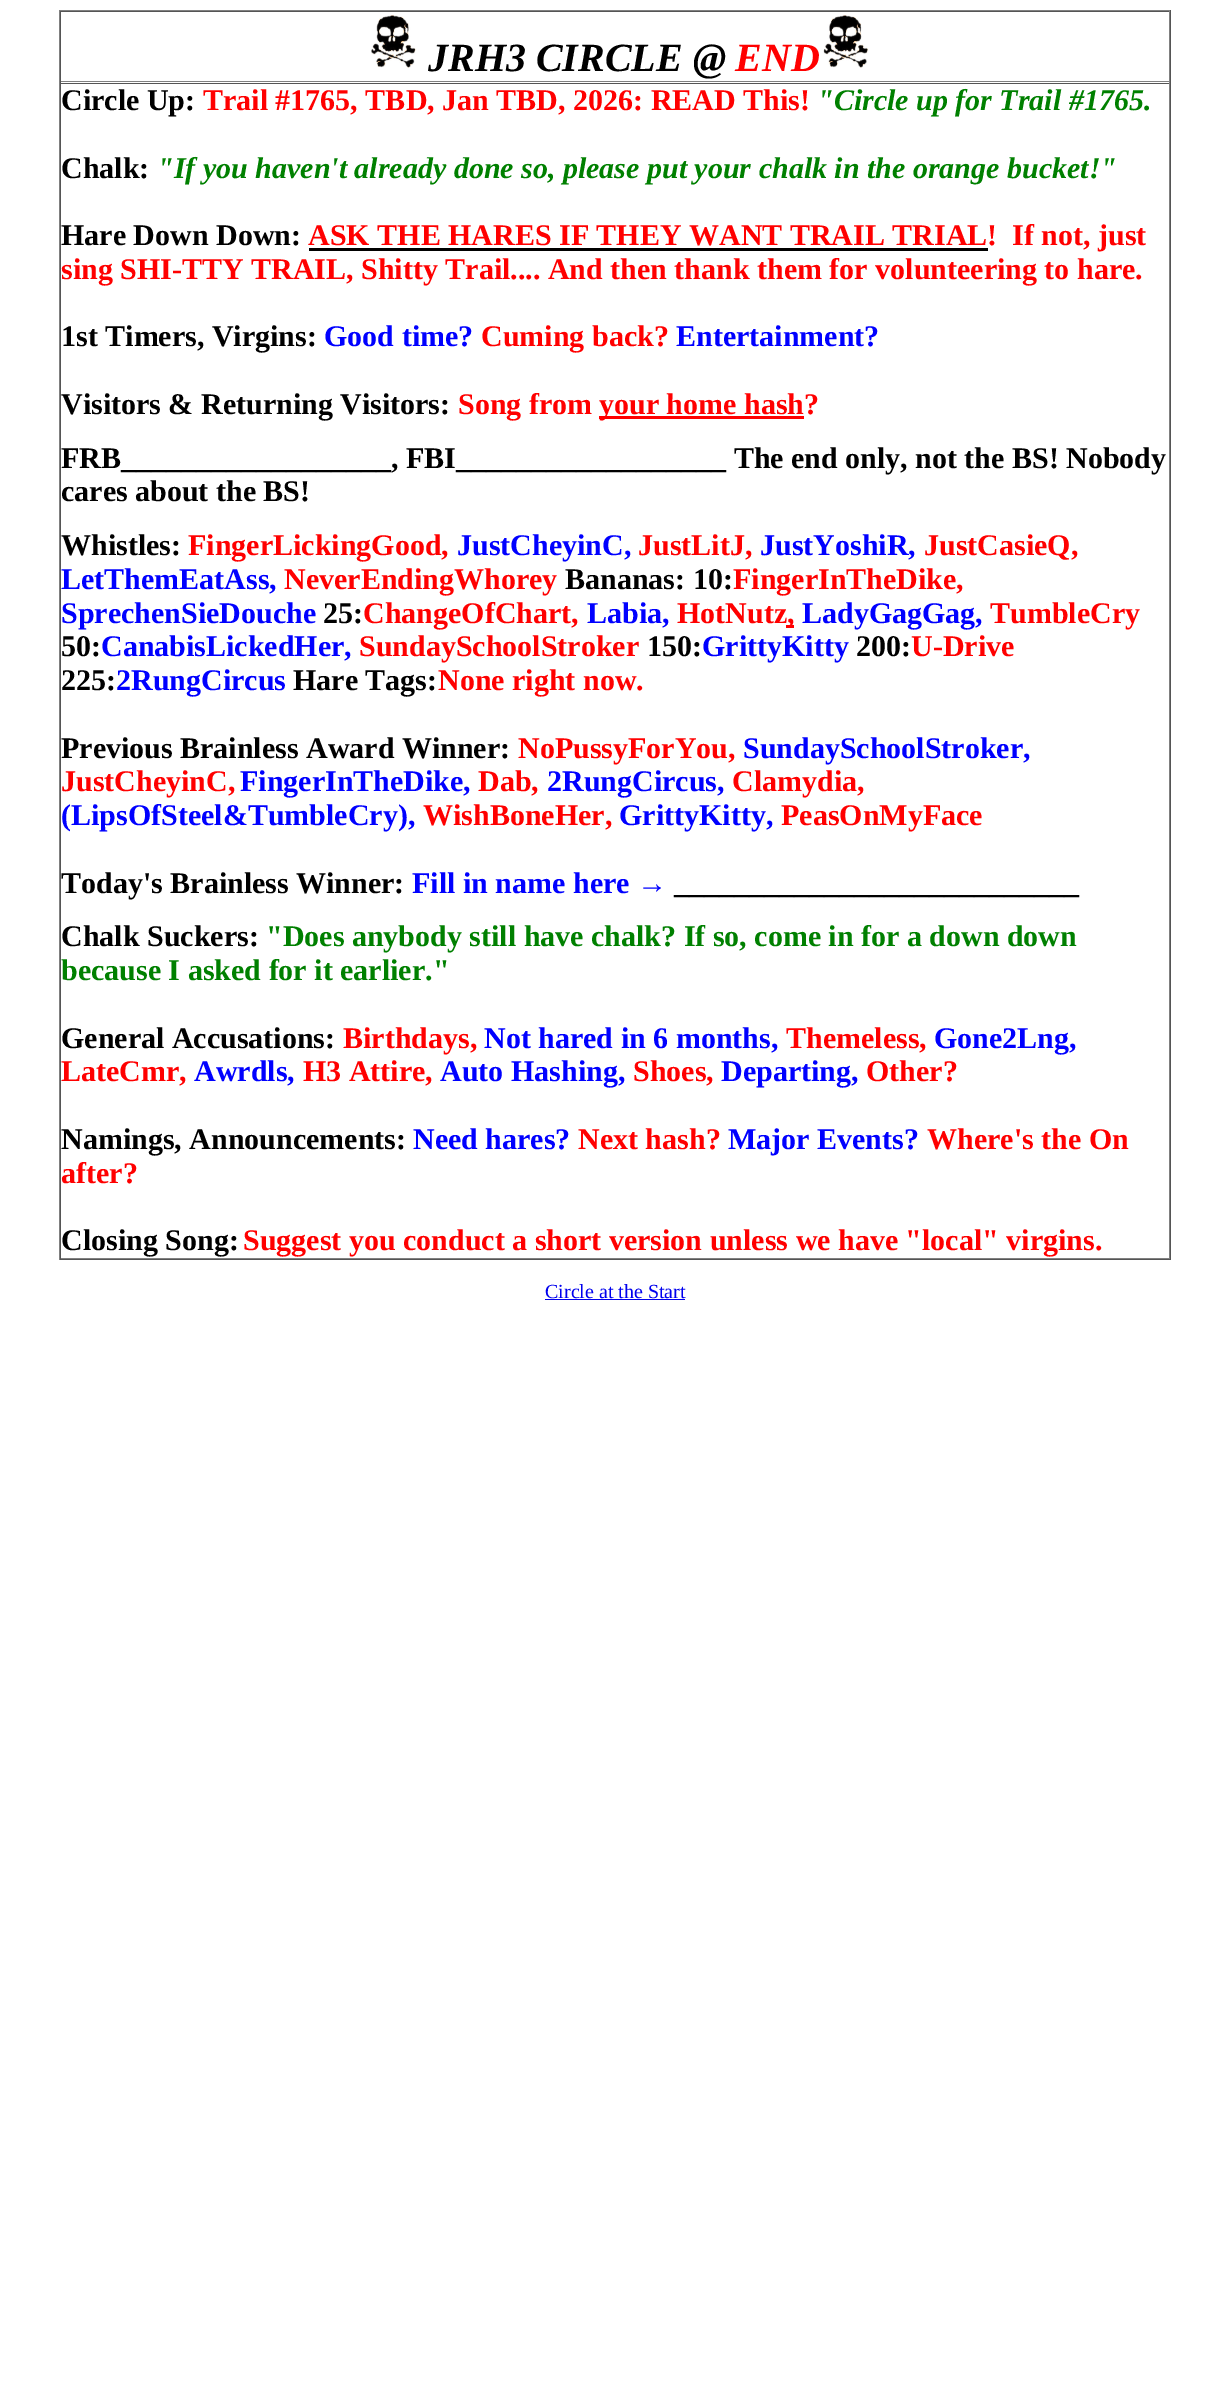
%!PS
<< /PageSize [1229 2401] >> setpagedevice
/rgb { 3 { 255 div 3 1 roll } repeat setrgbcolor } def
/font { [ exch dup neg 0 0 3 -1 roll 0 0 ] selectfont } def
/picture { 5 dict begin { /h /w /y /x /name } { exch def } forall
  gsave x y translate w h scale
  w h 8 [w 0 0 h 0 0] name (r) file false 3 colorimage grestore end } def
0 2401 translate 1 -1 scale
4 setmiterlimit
255 255 255 rgb
0 0 1229 2401 rectfill
[
  [59 10 1112 1 128 128 128]
  [1170 10 1 1250 85 85 85]
  [59 1259 1112 1 85 85 85]
  [59 10 1 1250 128 128 128]
  [60 11 1110 1 85 85 85]
  [1169 11 1 72 128 128 128]
  [60 81 1110 1 128 128 128]
  [60 11 1 72 85 85 85]
] { aload pop rgb rectfill } forall
(img/1.rgb) 371 15 46 53 picture
(img/2.rgb) 823 15 46 53 picture
[
  [60 83 1110 1 85 85 85]
  [1169 83 1 1176 128 128 128]
  [60 1258 1110 1 128 128 128]
  [60 83 1 1176 85 85 85]
  [309 248 679 3 0 0 0]
  [599 416 205 3 255 0 0]
  [786 625 8 3 255 0 0]
  [545 1299 140 1 0 0 238]
] { aload pop rgb rectfill } forall
/LiberationSerif-BoldItalic 40 font
0 0 0 rgb
428 71 moveto (JRH3 CIRCLE @) show
255 0 0 rgb
735 71 moveto (END) show
/LiberationSerif-Bold 30 font
0 0 0 rgb
61 110 moveto (Circle Up:) show
255 0 0 rgb
203 110 moveto (Trail #1765, TBD, Jan TBD, 2026: READ This!) show
/LiberationSerif-BoldItalic 30 font
0 128 0 rgb
817 110 moveto ("Circle up for Trail #1765.) show
/LiberationSerif-Bold 30 font
0 0 0 rgb
61 178 moveto (Chalk:) show
/LiberationSerif-BoldItalic 30 font
0 128 0 rgb
157 178 moveto ("If you haven't already done so, please put your chalk in the orange bucket!") show
/LiberationSerif-Bold 30 font
0 0 0 rgb
61 245 moveto (Hare Down Down:) show
255 0 0 rgb
308 245 moveto (ASK THE HARES IF THEY WANT TRAIL TRIAL!  If not, just) show
61 279 moveto (sing SHI-TTY TRAIL, Shitty Trail.... And then thank them for volunteering to hare.) show
0 0 0 rgb
61 346 moveto (1st Timers, Virgins:) show
0 0 255 rgb
324 346 moveto (Good time?) show
255 0 0 rgb
481 346 moveto (Cuming back?) show
0 0 255 rgb
676 346 moveto (Entertainment?) show
0 0 0 rgb
61 414 moveto (Visitors & Returning Visitors:) show
255 0 0 rgb
458 414 moveto (Song from) show
599 414 moveto (your home hash?) show
0 0 0 rgb
[
  [(FRB__________________, FBI__________________ The end only, not the BS! Nobody) 61 468]
  [(cares about the BS!) 61 501]
  [(Whistles:) 61 555]
] { aload pop moveto show } forall
255 0 0 rgb
188 555 moveto (FingerLickingGood,) show
0 0 255 rgb
457 555 moveto (JustCheyinC,) show
255 0 0 rgb
638 555 moveto (JustLitJ,) show
0 0 255 rgb
760 555 moveto (JustYoshiR,) show
255 0 0 rgb
924 555 moveto (JustCasieQ,) show
0 0 255 rgb
61 589 moveto (LetThemEatAss,) show
255 0 0 rgb
284 589 moveto (NeverEndingWhorey) show
0 0 0 rgb
565 589 moveto (Bananas: 10:) show
255 0 0 rgb
733 589 moveto (FingerInTheDike,) show
0 0 255 rgb
61 623 moveto (SprechenSieDouche) show
0 0 0 rgb
323 623 moveto (25:) show
255 0 0 rgb
363 623 moveto (ChangeOfChart,) show
0 0 255 rgb
587 623 moveto (Labia,) show
255 0 0 rgb
677 623 moveto (HotNutz) show
787 623 moveto (,) show
0 0 255 rgb
802 623 moveto (LadyGagGag,) show
255 0 0 rgb
990 623 moveto (TumbleCry) show
0 0 0 rgb
61 656 moveto (50:) show
0 0 255 rgb
101 656 moveto (CanabisLickedHer,) show
255 0 0 rgb
359 656 moveto (SundaySchoolStroker) show
0 0 0 rgb
647 656 moveto (150:) show
0 0 255 rgb
702 656 moveto (GrittyKitty) show
0 0 0 rgb
856 656 moveto (200:) show
255 0 0 rgb
911 656 moveto (U-Drive) show
0 0 0 rgb
61 690 moveto (225:) show
0 0 255 rgb
116 690 moveto (2RungCircus) show
0 0 0 rgb
293 690 moveto (Hare Tags:) show
255 0 0 rgb
438 690 moveto (None right now.) show
0 0 0 rgb
61 758 moveto (Previous Brainless Award Winner:) show
255 0 0 rgb
518 758 moveto (NoPussyForYou,) show
0 0 255 rgb
743 758 moveto (SundaySchoolStroker,) show
255 0 0 rgb
61 791 moveto (JustCheyinC,) show
0 0 255 rgb
240 791 moveto (FingerInTheDike,) show
255 0 0 rgb
478 791 moveto (Dab,) show
0 0 255 rgb
547 791 moveto (2RungCircus,) show
255 0 0 rgb
732 791 moveto (Clamydia,) show
0 0 255 rgb
61 825 moveto (\(LipsOfSteel&TumbleCry\),) show
255 0 0 rgb
423 825 moveto (WishBoneHer,) show
0 0 255 rgb
619 825 moveto (GrittyKitty,) show
255 0 0 rgb
781 825 moveto (PeasOnMyFace) show
0 0 0 rgb
61 893 moveto (Today's Brainless Winner:) show
0 0 255 rgb
412 893 moveto (Fill in name here →) show
0 0 0 rgb
674 893 moveto (___________________________) show
61 946 moveto (Chalk Suckers:) show
0 128 0 rgb
266 946 moveto ("Does anybody still have chalk? If so, come in for a down down) show
61 980 moveto (because I asked for it earlier.") show
0 0 0 rgb
61 1048 moveto (General Accusations:) show
255 0 0 rgb
343 1048 moveto (Birthdays,) show
0 0 255 rgb
484 1048 moveto (Not hared in 6 months,) show
255 0 0 rgb
786 1048 moveto (Themeless,) show
0 0 255 rgb
934 1048 moveto (Gone2Lng,) show
255 0 0 rgb
61 1081 moveto (LateCmr,) show
0 0 255 rgb
194 1081 moveto (Awrdls,) show
255 0 0 rgb
303 1081 moveto (H3 Attire,) show
0 0 255 rgb
440 1081 moveto (Auto Hashing,) show
255 0 0 rgb
633 1081 moveto (Shoes,) show
0 0 255 rgb
721 1081 moveto (Departing,) show
255 0 0 rgb
866 1081 moveto (Other?) show
0 0 0 rgb
61 1149 moveto (Namings, Announcements:) show
0 0 255 rgb
413 1149 moveto (Need hares?) show
255 0 0 rgb
578 1149 moveto (Next hash?) show
0 0 255 rgb
728 1149 moveto (Major Events?) show
255 0 0 rgb
927 1149 moveto (Where's the On) show
61 1183 moveto (after?) show
0 0 0 rgb
61 1250 moveto (Closing Song:) show
255 0 0 rgb
243 1250 moveto (Suggest you conduct a short version unless we have "local" virgins.) show
/LiberationSerif-Regular 20 font
0 0 238 rgb
545 1298 moveto (Circle at the Start) show
showpage
